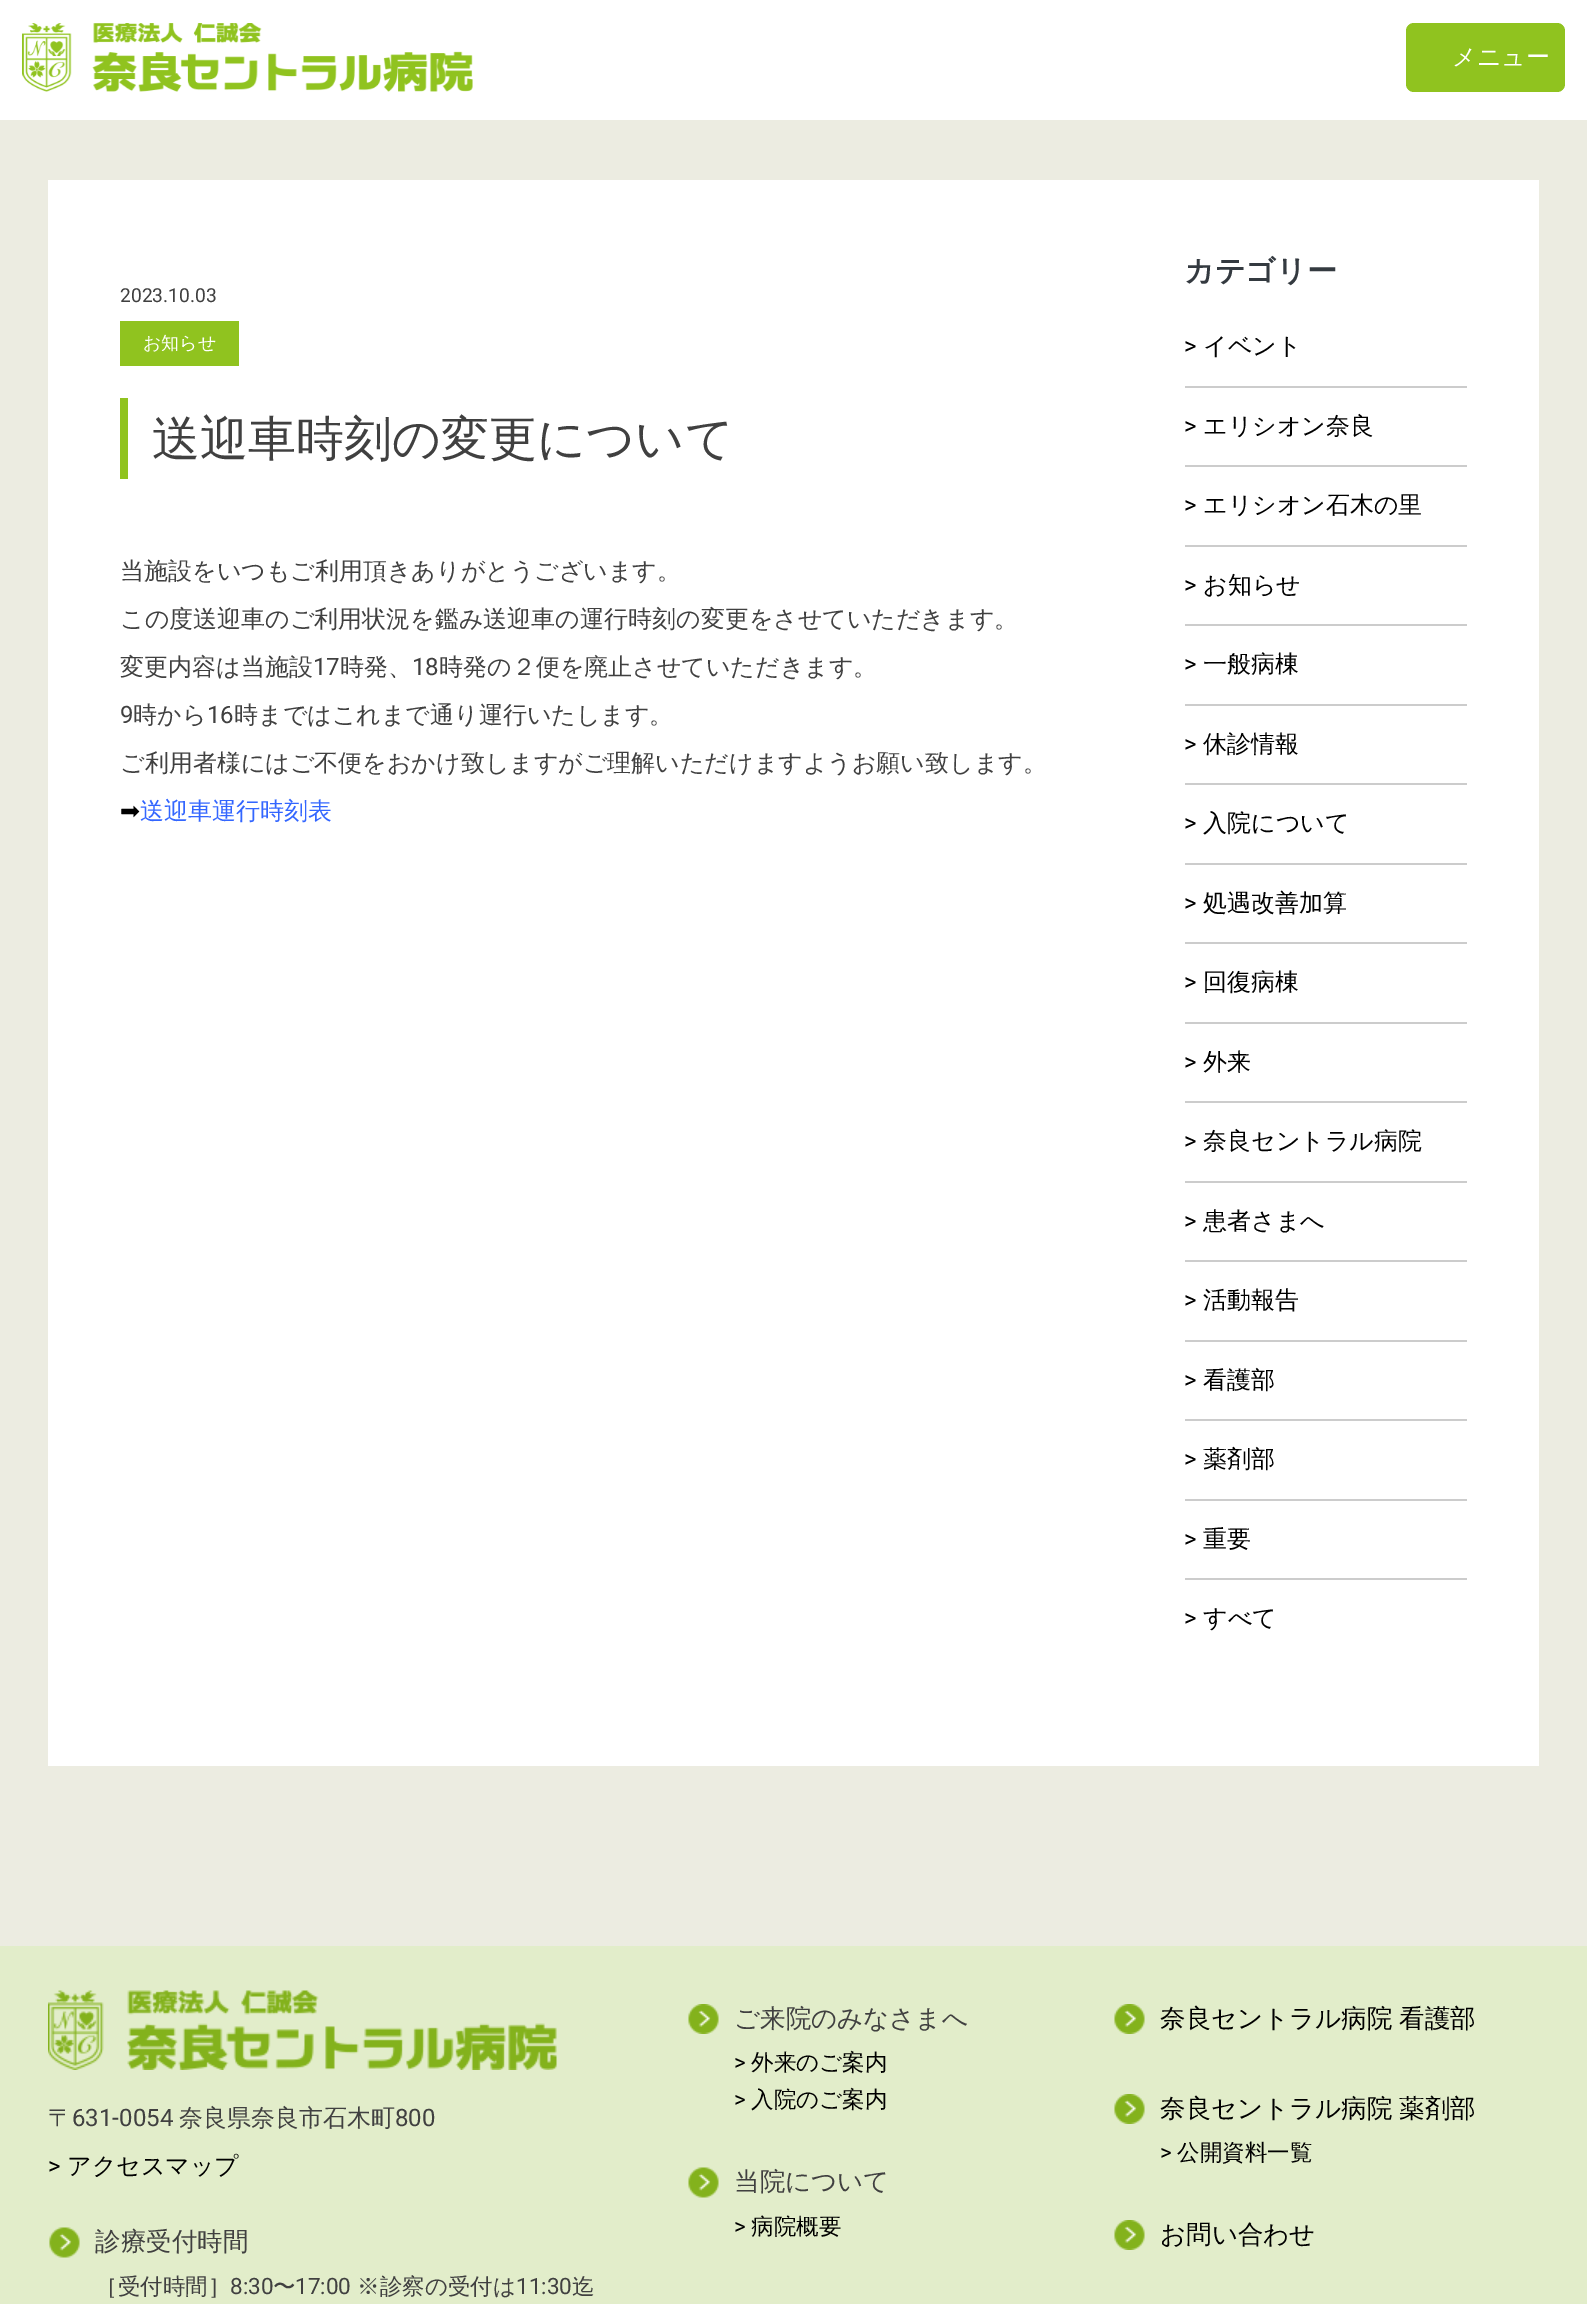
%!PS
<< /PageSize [1587 2304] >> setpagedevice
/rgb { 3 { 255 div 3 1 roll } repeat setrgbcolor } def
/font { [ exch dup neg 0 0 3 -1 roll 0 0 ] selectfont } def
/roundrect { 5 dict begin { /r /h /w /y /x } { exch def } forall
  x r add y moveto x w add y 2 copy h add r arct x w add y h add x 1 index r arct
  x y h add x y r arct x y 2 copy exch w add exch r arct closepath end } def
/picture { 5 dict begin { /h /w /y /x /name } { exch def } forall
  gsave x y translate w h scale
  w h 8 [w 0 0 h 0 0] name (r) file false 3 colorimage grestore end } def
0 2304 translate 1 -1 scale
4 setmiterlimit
255 255 255 rgb
0 0 1587 2304 rectfill
236 236 225 rgb
0 120 1587 1826 rectfill
(img/1.rgb) 22 23 451 69 picture
144 195 31 rgb
1406 23 159 69 8 roundrect fill
[
  [48 180 1491 1586 255 255 255]
  [120 321 119 45 144 195 31]
  [120 398 8 81 144 195 31]
  [1185 386 282 2 204 204 204]
  [1185 465 282 2 204 204 204]
  [1185 545 282 2 204 204 204]
  [1185 624 282 2 204 204 204]
  [1185 704 282 2 204 204 204]
  [1185 783 282 2 204 204 204]
  [1185 863 282 2 204 204 204]
  [1185 942 282 2 204 204 204]
  [1185 1022 282 2 204 204 204]
  [1185 1101 282 2 204 204 204]
  [1185 1181 282 2 204 204 204]
  [1185 1260 282 2 204 204 204]
  [1185 1340 282 2 204 204 204]
  [1185 1419 282 2 204 204 204]
  [1185 1499 282 2 204 204 204]
  [1185 1578 282 2 204 204 204]
  [0 1946 1587 358 226 237 202]
] { aload pop rgb rectfill } forall
(img/2.rgb) 48 1990 509 80 picture
(img/3.rgb) 49 2227 31 31 picture
(img/4.rgb) 688 2004 31 30 picture
(img/5.rgb) 688 2167 31 31 picture
(img/4.rgb) 1114 2004 31 30 picture
(img/4.rgb) 1114 2094 31 30 picture
(img/4.rgb) 1114 2220 31 30 picture
/WenQuanYiZenHei-Medium 24 font
255 255 255 rgb
1452 65 moveto (メニュー) show
/Roboto-Regular 19.25 font
64 64 64 rgb
120 302 moveto (2023.10.03) show
/WenQuanYiZenHei-Medium 18 font
255 255 255 rgb
143 349 moveto (お知らせ) show
/WenQuanYiZenHei-Medium 48 font
64 64 64 rgb
152 455 moveto (送迎車時刻の変更について) show
/WenQuanYiZenHei-Medium 24 font
[
  [(当施設をいつもご利用頂きありがとうございます。) 120 579]
  [(この度送迎車のご利用状況を鑑み送迎車の運行時刻の変更をさせていただきます。) 120 627]
  [(変更内容は当施設) 120 675]
] { aload pop moveto show } forall
/Roboto-Regular 24 font
313 675 moveto (17) show
/WenQuanYiZenHei-Medium 24 font
340 675 moveto (時発、) show
/Roboto-Regular 24 font
412 675 moveto (18) show
/WenQuanYiZenHei-Medium 24 font
439 675 moveto (時発の２便を廃止させていただきます。) show
/Roboto-Regular 24 font
120 723 moveto (9) show
/WenQuanYiZenHei-Medium 24 font
133 723 moveto (時から) show
/Roboto-Regular 24 font
207 723 moveto (16) show
/WenQuanYiZenHei-Medium 24 font
234 723 moveto (時まではこれまで通り運行いたします。) show
120 771 moveto (ご利用者様にはご不便をおかけ致しますがご理解いただけますようお願い致します。) show
/DejaVuSans-Regular 24 font
0 0 0 rgb
120 819 moveto (➡) show
/WenQuanYiZenHei-Medium 24 font
51 102 255 rgb
140 819 moveto (送迎車運行時刻表) show
/WenQuanYiZenHei-Bold 30 font
52 58 64 rgb
1184 281 moveto (カテゴリー) show
/Roboto-Regular 24 font
0 0 0 rgb
1184 354 moveto (>) show
/WenQuanYiZenHei-Medium 24 font
1203 354 moveto (イベント) show
/Roboto-Regular 24 font
1184 434 moveto (>) show
/WenQuanYiZenHei-Medium 24 font
1203 434 moveto (エリシオン奈良) show
/Roboto-Regular 24 font
1184 513 moveto (>) show
/WenQuanYiZenHei-Medium 24 font
1203 513 moveto (エリシオン石木の里) show
/Roboto-Regular 24 font
1184 593 moveto (>) show
/WenQuanYiZenHei-Medium 24 font
1203 593 moveto (お知らせ) show
/Roboto-Regular 24 font
1184 672 moveto (>) show
/WenQuanYiZenHei-Medium 24 font
1203 672 moveto (一般病棟) show
/Roboto-Regular 24 font
1184 752 moveto (>) show
/WenQuanYiZenHei-Medium 24 font
1203 752 moveto (休診情報) show
/Roboto-Regular 24 font
1184 831 moveto (>) show
/WenQuanYiZenHei-Medium 24 font
1203 831 moveto (入院について) show
/Roboto-Regular 24 font
1184 911 moveto (>) show
/WenQuanYiZenHei-Medium 24 font
1203 911 moveto (処遇改善加算) show
/Roboto-Regular 24 font
1184 990 moveto (>) show
/WenQuanYiZenHei-Medium 24 font
1203 990 moveto (回復病棟) show
/Roboto-Regular 24 font
1184 1070 moveto (>) show
/WenQuanYiZenHei-Medium 24 font
1203 1070 moveto (外来) show
/Roboto-Regular 24 font
1184 1149 moveto (>) show
/WenQuanYiZenHei-Medium 24 font
1203 1149 moveto (奈良セントラル病院) show
/Roboto-Regular 24 font
1184 1229 moveto (>) show
/WenQuanYiZenHei-Medium 24 font
1203 1229 moveto (患者さまへ) show
/Roboto-Regular 24 font
1184 1308 moveto (>) show
/WenQuanYiZenHei-Medium 24 font
1203 1308 moveto (活動報告) show
/Roboto-Regular 24 font
1184 1388 moveto (>) show
/WenQuanYiZenHei-Medium 24 font
1203 1388 moveto (看護部) show
/Roboto-Regular 24 font
1184 1467 moveto (>) show
/WenQuanYiZenHei-Medium 24 font
1203 1467 moveto (薬剤部) show
/Roboto-Regular 24 font
1184 1547 moveto (>) show
/WenQuanYiZenHei-Medium 24 font
1203 1547 moveto (重要) show
/Roboto-Regular 24 font
1184 1626 moveto (>) show
/WenQuanYiZenHei-Medium 24 font
1203 1626 moveto (すべて) show
64 64 64 rgb
48 2126 moveto (〒) show
/Roboto-Regular 24 font
72 2126 moveto (631-0054) show
/WenQuanYiZenHei-Medium 24 font
179 2126 moveto (奈良県奈良市石木町) show
/Roboto-Regular 24 font
395 2126 moveto (800) show
0 0 0 rgb
48 2174 moveto (>) show
/WenQuanYiZenHei-Medium 24 font
67 2174 moveto (アクセスマップ) show
/WenQuanYiZenHei-Medium 25.5 font
64 64 64 rgb
95 2250 moveto (診療受付時間) show
/WenQuanYiZenHei-Medium 22.5 font
95 2294 moveto (［受付時間］) show
/Roboto-Regular 22.5 font
230 2294 moveto (8:30) show
/WenQuanYiZenHei-Medium 22.5 font
273 2294 moveto (〜) show
/Roboto-Regular 22.5 font
295 2294 moveto (17:00) show
/WenQuanYiZenHei-Medium 22.5 font
357 2294 moveto (※診察の受付は) show
/Roboto-Regular 22.5 font
516 2294 moveto (11:30) show
/WenQuanYiZenHei-Medium 22.5 font
572 2294 moveto (迄) show
/WenQuanYiZenHei-Medium 25.5 font
734 2027 moveto (ご来院のみなさまへ) show
/Roboto-Regular 22.5 font
0 0 0 rgb
734 2070 moveto (>) show
/WenQuanYiZenHei-Medium 22.5 font
751 2070 moveto (外来のご案内) show
/Roboto-Regular 22.5 font
734 2107 moveto (>) show
/WenQuanYiZenHei-Medium 22.5 font
751 2107 moveto (入院のご案内) show
/WenQuanYiZenHei-Medium 25.5 font
64 64 64 rgb
734 2190 moveto (当院について) show
/Roboto-Regular 22.5 font
0 0 0 rgb
734 2234 moveto (>) show
/WenQuanYiZenHei-Medium 22.5 font
751 2234 moveto (病院概要) show
/WenQuanYiZenHei-Medium 25.5 font
1160 2027 moveto -1 0 32 (奈良セントラル病院 看護部) widthshow
1160 2117 moveto -1 0 32 (奈良セントラル病院 薬剤部) widthshow
/Roboto-Regular 22.5 font
1160 2160 moveto (>) show
/WenQuanYiZenHei-Medium 22.5 font
1177 2160 moveto (公開資料一覧) show
/WenQuanYiZenHei-Medium 25.5 font
1160 2243 moveto (お問い合わせ) show
showpage
